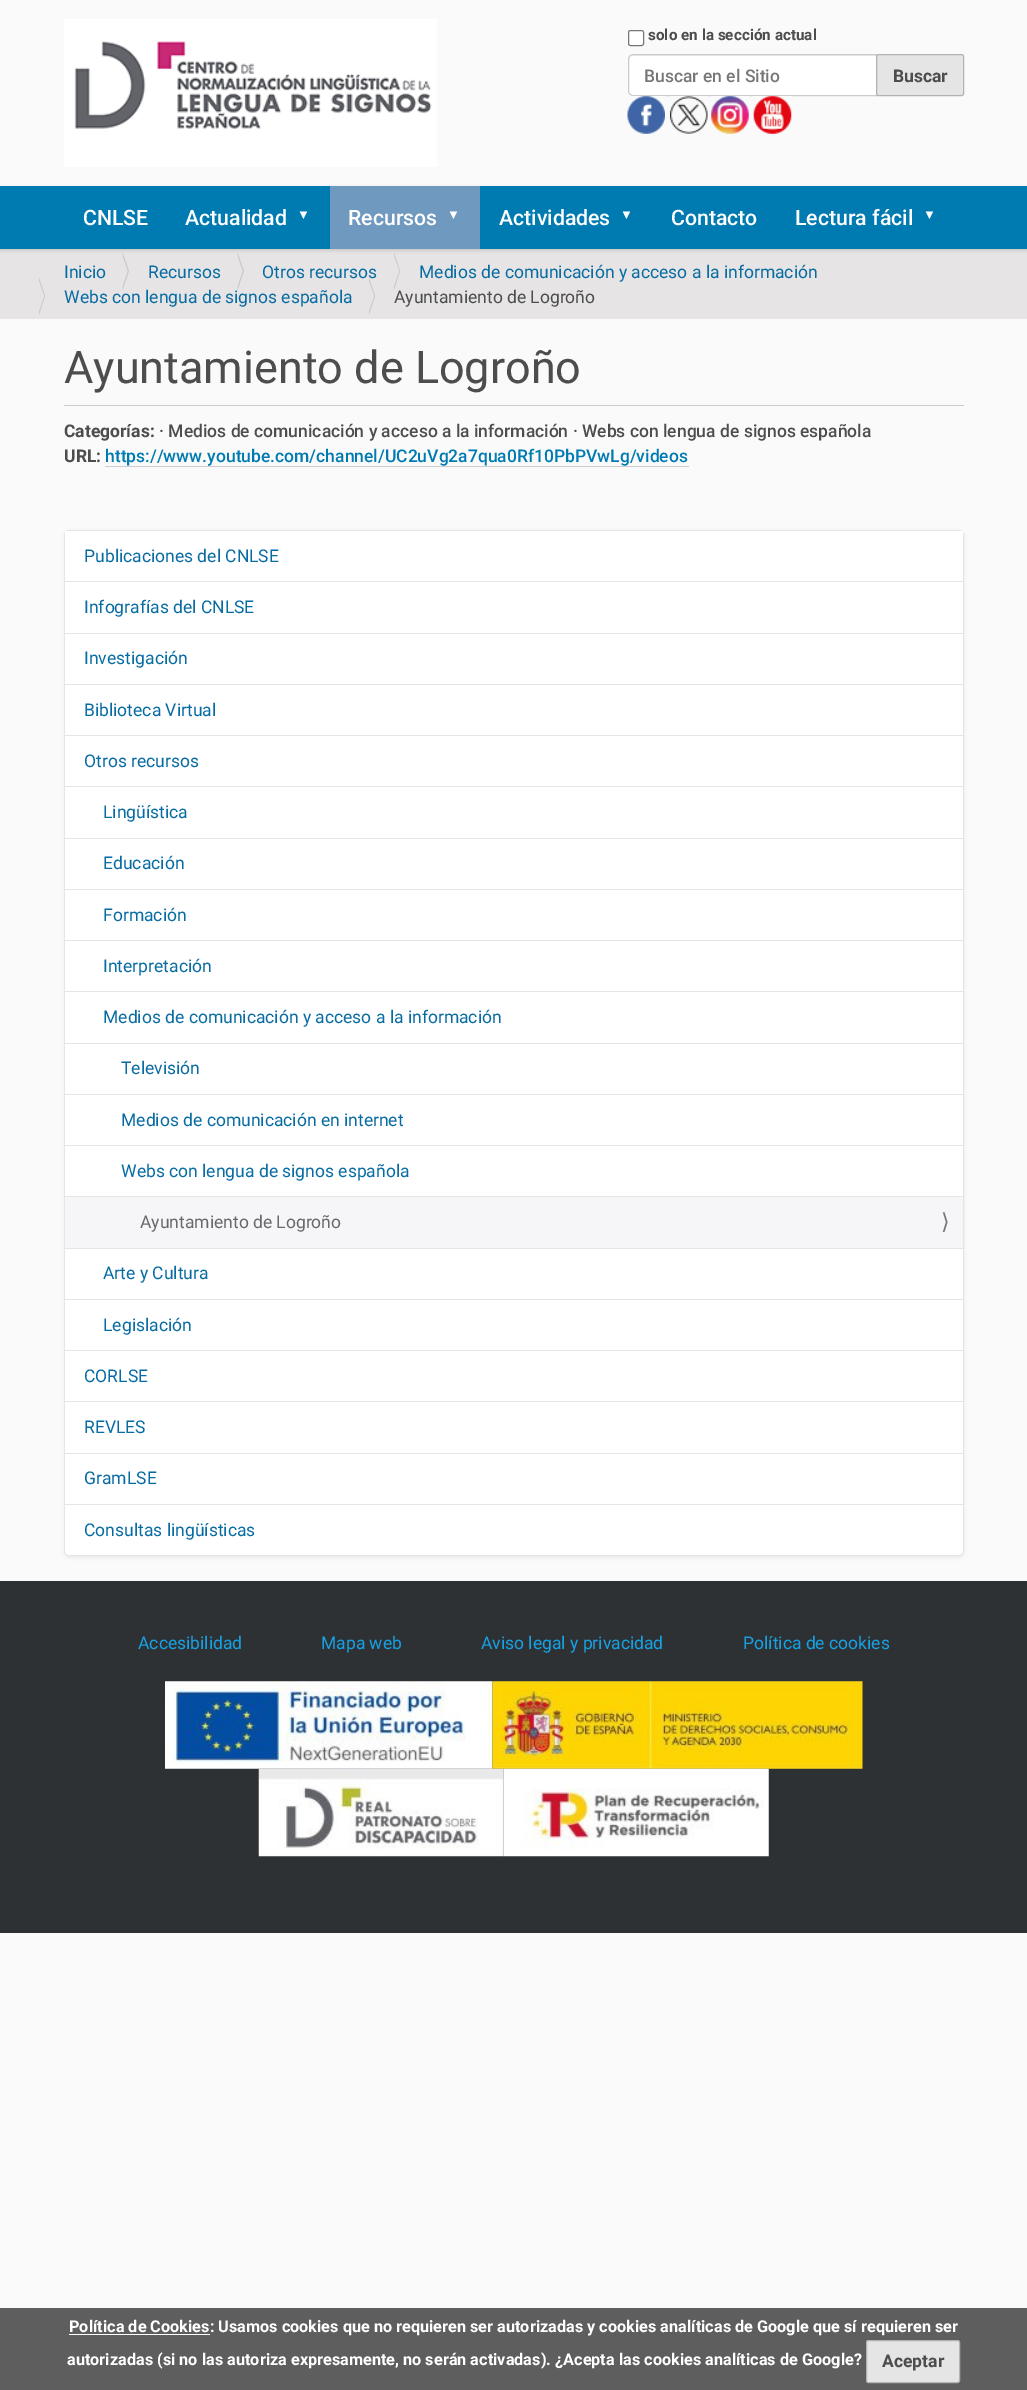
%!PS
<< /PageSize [1027 2390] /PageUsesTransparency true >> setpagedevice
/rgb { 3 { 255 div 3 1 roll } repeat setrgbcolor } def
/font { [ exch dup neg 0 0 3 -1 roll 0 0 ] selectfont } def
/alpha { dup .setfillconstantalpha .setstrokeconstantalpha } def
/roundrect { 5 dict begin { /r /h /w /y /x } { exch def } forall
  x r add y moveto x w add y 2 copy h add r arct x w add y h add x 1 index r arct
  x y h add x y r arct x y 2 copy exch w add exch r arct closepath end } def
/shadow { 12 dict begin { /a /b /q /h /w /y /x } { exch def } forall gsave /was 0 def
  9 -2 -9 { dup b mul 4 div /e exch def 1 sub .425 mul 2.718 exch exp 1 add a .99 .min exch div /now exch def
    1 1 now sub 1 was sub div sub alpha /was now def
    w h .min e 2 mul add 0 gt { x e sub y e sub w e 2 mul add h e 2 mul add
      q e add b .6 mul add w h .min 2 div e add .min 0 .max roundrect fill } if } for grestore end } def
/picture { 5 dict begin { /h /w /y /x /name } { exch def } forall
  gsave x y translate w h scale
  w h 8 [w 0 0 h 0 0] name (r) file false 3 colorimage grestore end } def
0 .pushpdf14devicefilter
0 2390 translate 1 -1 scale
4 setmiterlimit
250 250 250 rgb
0 0 1027 2390 rectfill
(img/1.rgb) 64 19 373 148 picture
255 255 255 rgb
628.5 30.5 15 15 2 roundrect gsave fill grestore
118 118 118 rgb
stroke
255 255 255 rgb
633 54 moveto 878 54 lineto 878 96 lineto 633 96 lineto 630 96 628 94 628 91 curveto 628 59 lineto 628 56 630 54 633 54 curveto closepath fill
236 236 236 rgb
632 56 moveto 876 56 lineto 876 55 lineto 633 55 lineto 631 55 629 57 629 59 curveto 629 60 lineto 629 58 630 56 632 56 curveto closepath fill
204 204 204 rgb
633 54.5 moveto 877.5 54.5 lineto 877.5 95.5 lineto 633 95.5 lineto 630.5 95.5 628.5 93.5 628.5 91 curveto 628.5 59 lineto 628.5 56.5 630.5 54.5 633 54.5 curveto closepath stroke
229 229 229 rgb
876.5 54.5 87 41 2 roundrect gsave fill grestore
178 178 178 rgb
stroke
(img/2.rgb) 627 96 38 38 picture
(img/3.rgb) 670 96 38 38 picture
(img/4.rgb) 711 96 38 38 picture
(img/5.rgb) 753 96 39 38 picture
230 228 228 rgb
0 249 1027 70 rectfill
0 0 0 rgb
0 188 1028 62 0 2 0.17 shadow
0 123 177 rgb
0 186 1027 63 rectfill
112 153 191 rgb
330 186 150 63 rectfill
204 204 204 rgb
122.5 290 moveto 122.5 252.5 lineto 129 271 lineto closepath fill
230 228 228 rgb
121 290 moveto 121 252.5 lineto 127.5 271 lineto closepath fill
204 204 204 rgb
237.5 290 moveto 237.5 252.5 lineto 244 271 lineto closepath fill
230 228 228 rgb
236 290 moveto 236 252.5 lineto 242.5 271 lineto closepath fill
204 204 204 rgb
394 290 moveto 394 252.5 lineto 400 271 lineto closepath fill
230 228 228 rgb
392.5 290 moveto 392.5 252.5 lineto 399 271 lineto closepath fill
204 204 204 rgb
39 315 moveto 39 277.5 lineto 45 296 lineto closepath fill
230 228 228 rgb
37.5 315 moveto 37.5 277.5 lineto 44 296 lineto closepath fill
204 204 204 rgb
64 405 900 1 rectfill
105 466 584 1 rectfill
0 0 0 rgb
64 531 900 1027 5 2 0.05 shadow
229 229 229 rgb
64.5 530.5 899 1025 4.5 roundrect stroke
255 255 255 rgb
65 531 moveto 963 531 lineto 963 1550 lineto 963 1553 961 1555 958 1555 curveto 70 1555 lineto 67 1555 65 1553 65 1550 curveto closepath fill
[
  [65 581 898 1 229 229 229]
  [65 633 898 1 229 229 229]
  [65 684 898 1 229 229 229]
  [65 735 898 1 229 229 229]
  [65 786 898 1 229 229 229]
  [65 838 898 1 229 229 229]
  [65 889 898 1 229 229 229]
  [65 940 898 1 229 229 229]
  [65 991 898 1 229 229 229]
  [65 1043 898 1 229 229 229]
  [65 1094 898 1 229 229 229]
  [65 1145 898 1 229 229 229]
  [65 1197 898 51 246 246 249]
  [65 1196 898 1 229 229 229]
  [65 1248 898 1 229 229 229]
  [65 1299 898 1 229 229 229]
  [65 1350 898 1 229 229 229]
  [65 1401 898 1 229 229 229]
  [65 1453 898 1 229 229 229]
  [65 1504 898 1 229 229 229]
  [0 1581 1027 352 46 49 51]
] { aload pop rgb rectfill } forall
(img/6.rgb) 165 1681 328 88 picture
(img/7.rgb) 492 1681 371 88 picture
(img/8.rgb) 258 1768 246 89 picture
(img/9.rgb) 503 1768 266 89 picture
94 94 94 rgb
0 2308 1027 82 rectfill
255 255 255 rgb
69 2334 141 1 rectfill
229 229 229 rgb
866.5 2340.5 93 42 2 roundrect gsave fill grestore
178 178 178 rgb
stroke
/Roboto-Bold 15.25 font
77 77 77 rgb
648 40 moveto (solo en la sección actual) show
/Roboto-Medium 17.5 font
119 119 119 rgb
644 82 moveto (Buscar en el Sitio) show
/Roboto-Bold 17.5 font
77 77 77 rgb
893 82 moveto (Buscar) show
/Roboto-Medium 21.25 font
255 255 255 rgb
83 225 moveto (CNLSE) show
185 225 moveto (Actualidad) show
/LiberationSans-Bold 13 font
297 219 moveto (▼) show
/Roboto-Medium 21.25 font
348 225 moveto (Recursos) show
/LiberationSans-Bold 13 font
447 219 moveto (▼) show
/Roboto-Medium 21.25 font
499 225 moveto (Actividades) show
/LiberationSans-Bold 13 font
620 219 moveto (▼) show
/Roboto-Medium 21.25 font
671 225 moveto (Contacto) show
795 225 moveto (Lectura fácil) show
/LiberationSans-Bold 13 font
923 219 moveto (▼) show
/Roboto-Regular 17.5 font
8 108 163 rgb
[
  [(Inicio) 64 278]
  [(Recursos) 148 278]
  [(Otros recursos) 262 278]
  [(Medios de comunicación y acceso a la información) 419 278]
  [(Webs con lengua de signos española) 64 303]
] { aload pop moveto show } forall
204 204 204 rgb
369 315 moveto 369 277.5 lineto 375 296 lineto closepath fill
230 228 228 rgb
367.5 315 moveto 367.5 277.5 lineto 374 296 lineto closepath fill
77 77 77 rgb
394 303 moveto (Ayuntamiento de Logroño) show
/Roboto-Regular 45 font
64 383 moveto (Ayuntamiento de Logroño) show
/Roboto-Bold 17.5 font
64 437 moveto (Categorías:) show
/Roboto-Medium 17.5 font
159 437 moveto (· Medios de comunicación y acceso a la información · Webs con lengua de signos española) show
/Roboto-Bold 17.5 font
64 462 moveto (URL:) show
/Roboto-Medium 17.5 font
0 123 177 rgb
105 462 moveto (https://www.youtube.com/channel/UC2uVg2a7qua0Rf10PbPVwLg/videos) show
/Roboto-Regular 17.5 font
8 108 163 rgb
[
  [(Publicaciones del CNLSE) 84 562]
  [(Infografías del CNLSE) 84 613]
  [(Investigación) 84 664]
  [(Biblioteca Virtual) 84 716]
  [(Otros recursos) 84 767]
  [(Lingüística) 103 818]
  [(Educación) 103 869]
  [(Formación) 103 921]
  [(Interpretación) 103 972]
  [(Medios de comunicación y acceso a la información) 103 1023]
  [(Televisión) 121 1074]
  [(Medios de comunicación en internet) 121 1126]
  [(Webs con lengua de signos española) 121 1177]
] { aload pop moveto show } forall
105 105 105 rgb
140 1228 moveto (Ayuntamiento de Logroño) show
/DejaVuSans-Regular 22 font
119 119 119 rgb
941 1229 moveto (⟩) show
/Roboto-Regular 17.5 font
8 108 163 rgb
[
  [(Arte y Cultura) 103 1279]
  [(Legislación) 103 1331]
  [(CORLSE) 84 1382]
  [(REVLES) 84 1433]
  [(GramLSE) 84 1484]
  [(Consultas lingüísticas) 84 1536]
] { aload pop moveto show } forall
22 161 227 rgb
[
  [(Accesibilidad) 138 1649]
  [(Mapa web) 321 1649]
  [(Aviso legal y privacidad) 481 1649]
  [(Política de cookies) 743 1649]
] { aload pop moveto show } forall
/Roboto-Bold 16.25 font
255 255 255 rgb
69 2332 moveto (Política de Cookies: Usamos cookies que no requieren ser autorizadas y cookies analíticas de Google que sí requieren ser) show
67 2365 moveto (autorizadas \(si no las autoriza expresamente, no serán activadas\). ¿Acepta las cookies analíticas de Google?) show
/Roboto-Bold 17.5 font
77 77 77 rgb
882 2367 moveto (Aceptar) show
.poppdf14devicefilter showpage
